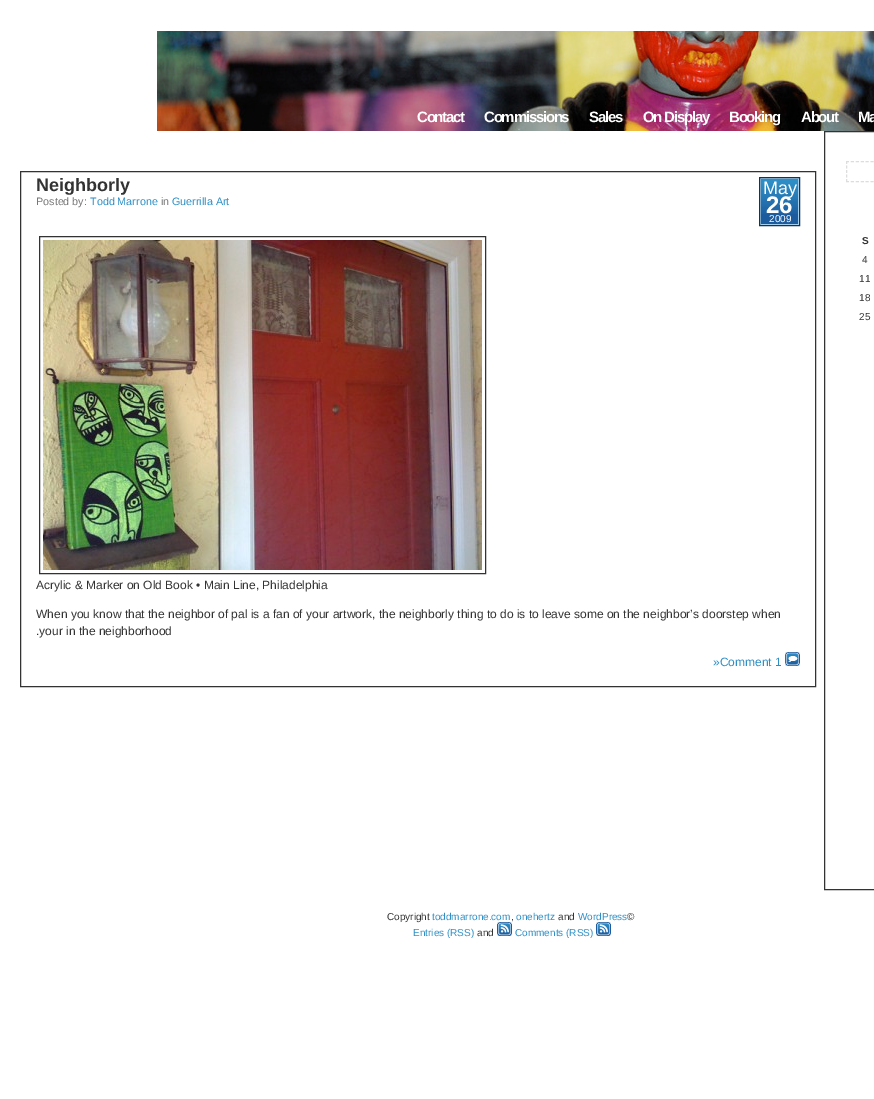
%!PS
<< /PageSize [874 1099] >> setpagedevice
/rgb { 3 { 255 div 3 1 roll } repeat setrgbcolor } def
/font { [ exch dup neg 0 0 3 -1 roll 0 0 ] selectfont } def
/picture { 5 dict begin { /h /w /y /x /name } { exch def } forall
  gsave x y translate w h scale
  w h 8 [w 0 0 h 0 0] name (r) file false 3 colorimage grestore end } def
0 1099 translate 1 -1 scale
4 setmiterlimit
255 255 255 rgb
0 0 874 1099 rectfill
(img/1.rgb) 157 31 717 100 picture
51 51 51 rgb
20.5 171.5 795 515 rectstroke
163 207 236 rgb
759.5 177.5 moveto 799.5 177.5 lineto 799.5 225.5 lineto 759.5 225.5 lineto closepath gsave fill grestore
15 52 97 rgb
stroke
28 91 158 rgb
761 214 37 10 rectfill
(img/2.rgb) 761 179 37 35 picture
51 51 51 rgb
39.5 236.5 446 337 rectstroke
(img/3.rgb) 43 240 439 330 picture
(img/4.rgb) 785 652 15 14 picture
824.5 131.5 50 758 rectstroke
221 221 221 rgb
[3 1.93] 0 setdash
846 161.5 moveto 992 161.5 lineto 846 181.5 moveto 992 181.5 lineto stroke
[3 1.5] 0 setdash
846.5 161 moveto 846.5 182 lineto stroke
(img/5.rgb) 497 922 15 14 picture
(img/5.rgb) 596 922 15 14 picture
/LiberationSans-Bold 15 font
255 255 255 rgb
417 122 moveto -1.25 0 (Contact) ashow
484 122 moveto -1.25 0 (Commissions) ashow
589 122 moveto -1.25 0 (Sales) ashow
643 122 moveto -1.25 0 (On Display) ashow
729 122 moveto -1.25 0 (Booking) ashow
801 122 moveto -1.25 0 (About) ashow
858 122 moveto -1.25 0 (Ma) ashow
/LiberationSans-Bold 18 font
51 51 51 rgb
36 191 moveto (Neighborly) show
/LiberationSans-Regular 18 font
255 255 255 rgb
763 194 moveto (May) show
/LiberationSans-Bold 24 font
766 213 moveto (26) show
/LiberationSans-Regular 10 font
769 222 moveto (2009) show
/LiberationSans-Regular 10.75 font
119 119 119 rgb
36 205 moveto (Posted by:) show
46 143 198 rgb
90 205 moveto (Todd Marrone) show
119 119 119 rgb
161 205 moveto (in) show
46 143 198 rgb
172 205 moveto (Guerrilla Art) show
/LiberationSans-Regular 12 font
51 51 51 rgb
[
  [(Acrylic & Marker on Old Book • Main Line, Philadelphia) 36 589]
  [(When you know that the neighbor of pal is a fan of your artwork, the neighborly thing to do is to leave some on the neighbor’s doorstep when) 36 618]
  [(.your in the neighborhood) 36 635]
] { aload pop moveto show } forall
46 143 198 rgb
713 666 moveto (»Comment 1) show
/LiberationSans-Bold 10 font
51 51 51 rgb
862 244 moveto (S) show
/LiberationSans-Regular 10 font
[
  [(4) 862 263]
  [(11) 859 282]
  [(18) 859 301]
  [(25) 859 320]
  [(Copyright) 387 920]
] { aload pop moveto show } forall
46 143 198 rgb
432 920 moveto (toddmarrone.com) show
51 51 51 rgb
511 920 moveto (,) show
46 143 198 rgb
516 920 moveto (onehertz) show
51 51 51 rgb
558 920 moveto (and) show
46 143 198 rgb
578 920 moveto (WordPress) show
51 51 51 rgb
627 920 moveto (©) show
46 143 198 rgb
413 936 moveto (Entries \(RSS\)) show
51 51 51 rgb
477 936 moveto (and) show
46 143 198 rgb
515 936 moveto (Comments \(RSS\)) show
showpage
